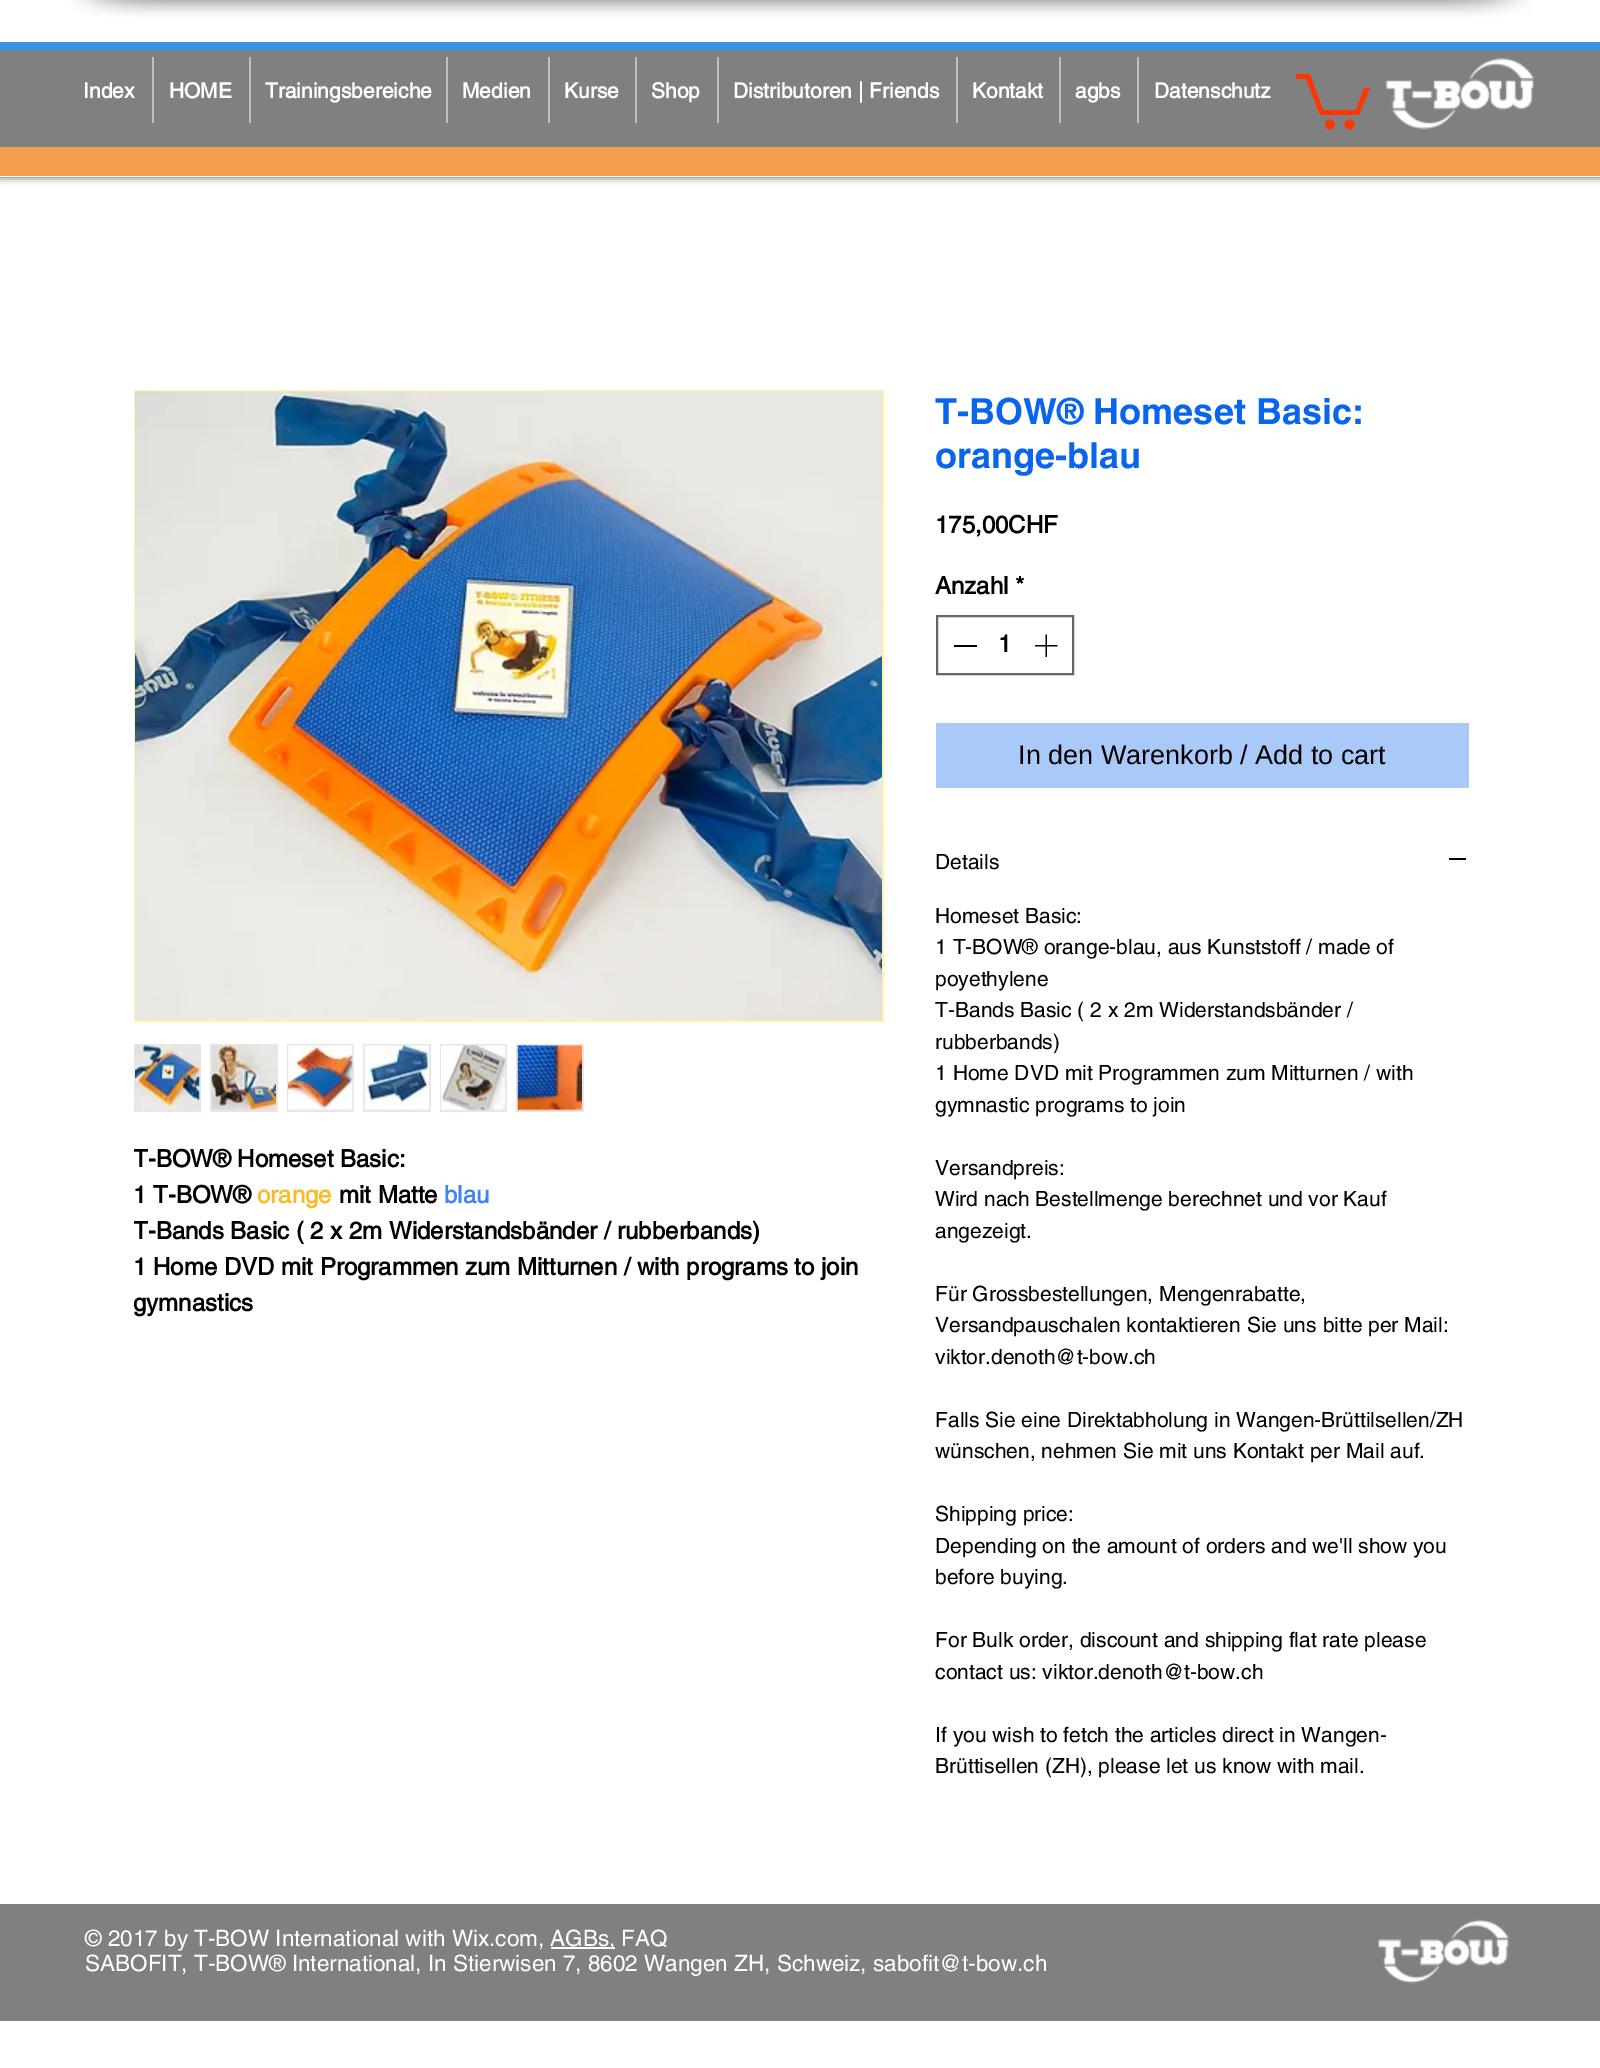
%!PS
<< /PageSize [1600 2068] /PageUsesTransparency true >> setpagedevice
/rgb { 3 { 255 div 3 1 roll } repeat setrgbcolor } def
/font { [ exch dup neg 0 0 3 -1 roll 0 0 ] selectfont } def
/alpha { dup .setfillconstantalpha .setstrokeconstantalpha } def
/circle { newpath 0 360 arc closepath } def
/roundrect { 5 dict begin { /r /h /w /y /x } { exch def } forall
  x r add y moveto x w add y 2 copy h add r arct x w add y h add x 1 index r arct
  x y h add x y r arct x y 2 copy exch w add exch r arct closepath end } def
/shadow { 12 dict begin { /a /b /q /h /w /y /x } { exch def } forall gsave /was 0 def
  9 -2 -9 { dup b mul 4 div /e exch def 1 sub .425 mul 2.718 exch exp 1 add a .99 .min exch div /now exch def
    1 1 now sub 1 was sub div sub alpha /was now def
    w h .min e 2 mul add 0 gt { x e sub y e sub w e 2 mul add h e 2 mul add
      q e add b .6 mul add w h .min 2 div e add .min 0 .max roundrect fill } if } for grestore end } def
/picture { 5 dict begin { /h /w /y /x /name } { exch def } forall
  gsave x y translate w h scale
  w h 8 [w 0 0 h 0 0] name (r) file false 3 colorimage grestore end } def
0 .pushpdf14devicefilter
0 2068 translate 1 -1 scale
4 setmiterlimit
255 255 255 rgb
0 0 1600 2068 rectfill
(img/1.rgb) 71 0 145 17 picture
(img/2.rgb) 216 0 1170 17 picture
(img/3.rgb) 1386 0 145 17 picture
gsave
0 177 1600 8 rectclip
0 0 0 rgb
0 0 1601 177 0 4 0.7 shadow
grestore
[
  [0 42 1600 8 57 147 224]
  [0 50 1600 97 128 128 128]
  [152 57 2 66 192 192 192]
  [249 57 2 66 192 192 192]
  [446 57 2 66 192 192 192]
  [548 57 2 66 192 192 192]
  [635 57 2 66 192 192 192]
  [717 57 2 66 192 192 192]
  [956 57 2 66 192 192 192]
  [1059 57 2 66 192 192 192]
  [1137 57 2 66 192 192 192]
] { aload pop rgb rectfill } forall
249 56 5 rgb
1370 88 moveto 1359 115 lineto 1320 115 lineto 1306 79 lineto 1296 79 lineto 1296 74 lineto 1310 74 lineto 1323 110 lineto 1356 110 lineto 1364 88 lineto fill
1349.5 124.5 5 circle fill
1330 124.5 5 circle fill
(img/4.rgb) 1385 58 149 72 picture
244 159 80 rgb
0 147 1600 29 rectfill
254 242 174 rgb
2 setlinewidth
135 391 748 630 rectstroke
(img/5.rgb) 135 391 747 629 picture
232 230 230 rgb
134 1044 67 68 rectfill
(img/6.rgb) 135 1045 65 65 picture
210 1044 68 68 rectfill
(img/7.rgb) 211 1045 65 66 picture
287 1044 67 68 rectfill
(img/8.rgb) 288 1045 65 65 picture
363 1044 68 68 rectfill
(img/9.rgb) 364 1045 65 65 picture
440 1044 67 68 rectfill
(img/10.rgb) 441 1045 65 66 picture
516 1044 68 68 rectfill
(img/11.rgb) 517 1045 65 66 picture
102 102 102 rgb
937 616 136 58 rectstroke
0 0 0 rgb
954 645 23 2 rectfill
(img/12.rgb) 1035 634 23 23 picture
[
  [936 723 533 65 169 201 249]
  [1449 858 17 2 0 0 0]
  [0 1904 1600 117 128 128 128]
  [551 1947 64 2 255 255 255]
] { aload pop rgb rectfill } forall
(img/13.rgb) 1378 1919 132 65 picture
/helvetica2-Bold 21 font
[
  [(Index) 83 98]
  [(HOME) 169 98]
  [(Trainingsbereiche) 265 98]
  [(Medien) 462 98]
  [(Kurse) 564 98]
  [(Shop) 651 98]
  [(Distributoren | Friends) 733 98]
  [(Kontakt) 972 98]
  [(agbs) 1075 98]
  [(Datenschutz) 1154 98]
] { aload pop moveto show } forall
gsave
134 1142 750 180 rectclip
/helvetica2-Bold 24 font
0 0 0 rgb
133 1167 moveto (T-BOW® Homeset Basic:) show
grestore
/helvetica2-Bold 24 font
0 0 0 rgb
133 1203 moveto (1 T-BOW®) show
252 186 40 rgb
257 1203 moveto (orange) show
0 0 0 rgb
339 1203 moveto (mit Matte) show
66 133 239 rgb
444 1203 moveto (blau) show
gsave
134 1142 750 180 rectclip
0 0 0 rgb
133 1239 moveto (T-Bands Basic \( 2 x 2m Widerstandsbänder / rubberbands\)) show
grestore
0 0 0 rgb
133 1275 moveto (1 Home DVD mit Programmen zum Mitturnen / with programs to join) show
gsave
134 1142 750 180 rectclip
133 1311 moveto (gymnastics) show
grestore
/helvetica-Bold 36 font
9 101 236 rgb
935 424 moveto (T-BOW® Homeset Basic:) show
935 468 moveto (orange-blau) show
/helvetica2-Bold 24 font
0 0 0 rgb
[
  [(175,00CHF) 935 533]
  [(Anzahl) 935 594]
  [(*) 1015 594]
  [(1) 998 652]
] { aload pop moveto show } forall
/LiberationSans-Regular 27 font
1018 764 moveto (In den Warenkorb / Add to cart) show
/helvetica-Regular 21 font
[
  [(Details) 935 869]
  [(Homeset Basic:) 935 923]
  [(1 T-BOW® orange-blau, aus Kunststoff / made of) 935 954]
  [(poyethylene) 935 986]
  [(T-Bands Basic \( 2 x 2m Widerstandsbänder /) 935 1017]
  [(rubberbands\)) 935 1049]
  [(1 Home DVD mit Programmen zum Mitturnen / with) 935 1080]
  [(gymnastic programs to join) 935 1112]
  [(Versandpreis:) 935 1175]
  [(Wird nach Bestellmenge berechnet und vor Kauf) 935 1206]
  [(angezeigt.) 935 1238]
  [(Für Grossbestellungen, Mengenrabatte,) 935 1301]
  [(Versandpauschalen kontaktieren Sie uns bitte per Mail:) 935 1332]
  [(viktor.denoth@t-bow.ch) 935 1364]
  [(Falls Sie eine Direktabholung in Wangen-Brüttilsellen/ZH) 935 1427]
  [(wünschen, nehmen Sie mit uns Kontakt per Mail auf.) 935 1458]
  [(Shipping price:) 935 1521]
  [(Depending on the amount of orders and we'll show you) 935 1553]
  [(before buying.) 935 1584]
  [(For Bulk order, discount and shipping flat rate please) 935 1647]
  [(contact us: viktor.denoth@t-bow.ch) 935 1679]
  [(If you wish to fetch the articles direct in Wangen-) 935 1742]
  [(Brüttisellen \(ZH\), please let us know with mail.) 935 1773]
] { aload pop moveto show } forall
/helvetica-Regular 22.5 font
255 255 255 rgb
[
  [(© 2017 by T-BOW International with Wix.com,) 85 1946]
  [(AGBs, FAQ) 550 1946]
  [(SABOFIT, T-BOW® International, In Stierwisen 7, 8602 Wangen ZH, Schweiz, sabofit@t-bow.ch) 85 1971]
] { aload pop moveto show } forall
.poppdf14devicefilter showpage
